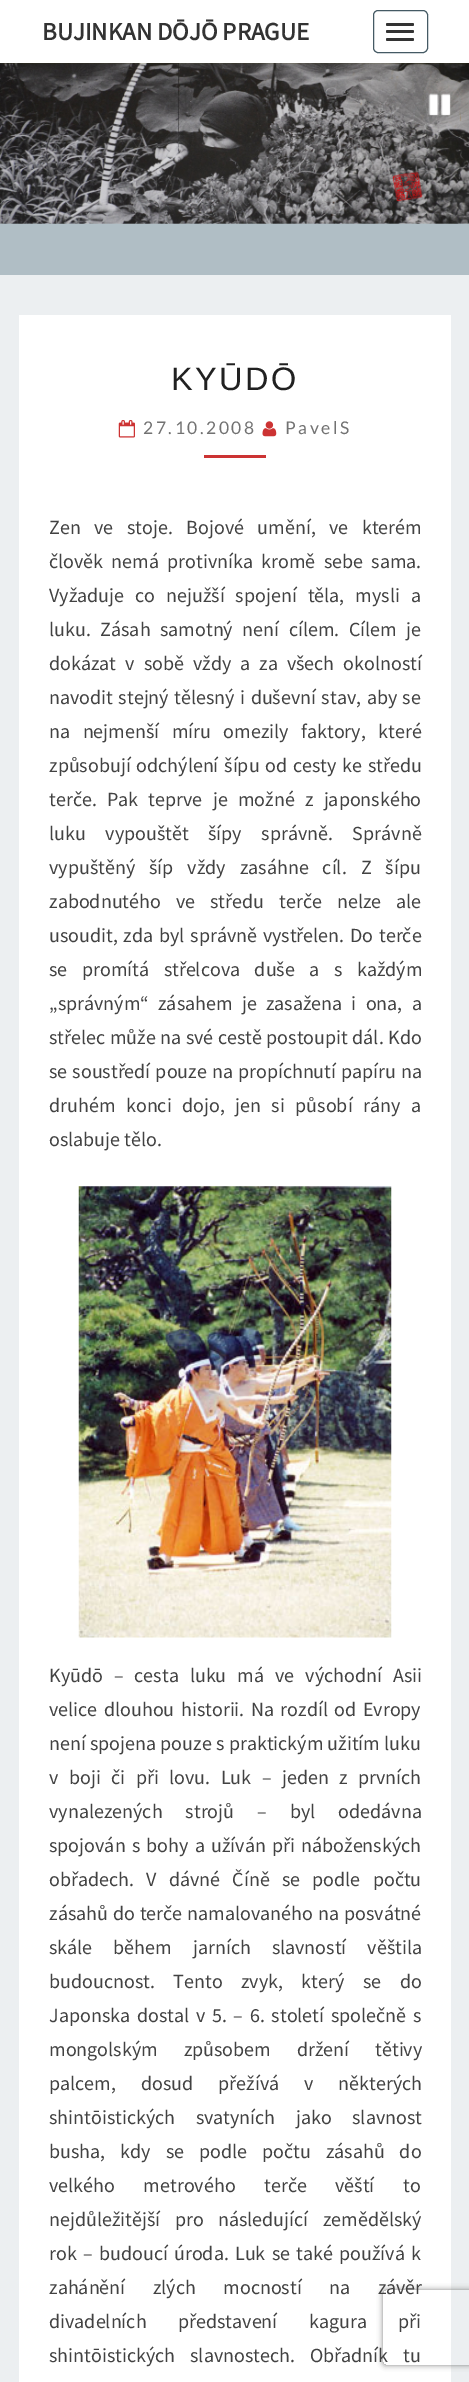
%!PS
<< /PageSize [469 2382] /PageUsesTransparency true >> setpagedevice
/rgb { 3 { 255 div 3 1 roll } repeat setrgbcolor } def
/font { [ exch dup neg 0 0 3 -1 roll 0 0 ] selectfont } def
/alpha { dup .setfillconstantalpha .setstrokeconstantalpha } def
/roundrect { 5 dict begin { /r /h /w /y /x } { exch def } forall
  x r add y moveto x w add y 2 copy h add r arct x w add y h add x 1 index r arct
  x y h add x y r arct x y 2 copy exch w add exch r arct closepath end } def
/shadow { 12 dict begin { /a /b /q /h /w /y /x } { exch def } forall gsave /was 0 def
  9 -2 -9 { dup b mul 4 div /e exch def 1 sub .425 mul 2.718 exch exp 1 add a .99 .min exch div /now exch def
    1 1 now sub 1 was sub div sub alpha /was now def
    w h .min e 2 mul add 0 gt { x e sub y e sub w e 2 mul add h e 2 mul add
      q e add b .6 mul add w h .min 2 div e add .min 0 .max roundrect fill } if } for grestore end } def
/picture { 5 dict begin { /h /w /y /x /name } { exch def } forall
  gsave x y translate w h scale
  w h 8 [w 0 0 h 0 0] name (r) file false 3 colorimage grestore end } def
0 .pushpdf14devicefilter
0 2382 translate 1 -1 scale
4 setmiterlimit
236 239 241 rgb
0 0 469 2382 rectfill
176 190 197 rgb
0 223 469 52 rectfill
(img/1.rgb) 0 63 469 161 picture
100 100 0 rgb
0 1 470 63 0 0.5 0.1 shadow
255 255 255 rgb
0 0 469 63 rectfill
69 90 100 rgb
373.5 10.5 54 42 4.5 roundrect stroke
51 51 51 rgb
386 23 28 3 1.5 roundrect fill
386 30 28 3 1.5 roundrect fill
386 38 28 3 1.5 roundrect fill
(img/2.rgb) 428 93 23 23 picture
255 255 255 rgb
19 315 432 2067 rectfill
(img/3.rgb) 118 420 17 18 picture
(img/4.rgb) 262 421 15 16 picture
204 51 51 rgb
204 455 62 3 rectfill
(img/5.rgb) 78 1186 314 452 picture
gsave
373 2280 moveto 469 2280 lineto 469 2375 lineto 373 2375 lineto closepath 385.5 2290 moveto 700.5 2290 lineto 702 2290 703 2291 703 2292.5 curveto 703 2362.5 lineto 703 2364 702 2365 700.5 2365 curveto 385.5 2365 lineto 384 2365 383 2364 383 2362.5 curveto 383 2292.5 lineto 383 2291 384 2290 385.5 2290 curveto closepath eoclip newpath
128 128 128 rgb
383 2290 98 75 2.5 3 1 shadow
grestore
/SourceSansPro-Bold 25 font
51 51 51 rgb
42 40 moveto (BUJINKAN DŌJŌ PRAGUE) show
/LiberationSans-Regular 32.5 font
33 33 33 rgb
171 390 moveto 2.5 0 (KYŪDŌ) ashow
/Lato-Regular 17.5 font
114 114 114 rgb
143 434 moveto 2.5 0 (27.10.2008) ashow
285 434 moveto 2.5 0 (PavelS) ashow
/SourceSansPro-Regular 20 font
66 66 66 rgb
49 534 moveto 9.5 0 32 (Zen ve stoje. Bojové umění, ve kterém) widthshow
49 568 moveto 4.25 0 32 (člověk nemá protivníka kromě sebe sama.) widthshow
49 602 moveto 7 0 32 (Vyžaduje co nejužší spojení těla, mysli a) widthshow
49 636 moveto 5.5 0 32 (luku. Zásah samotný není cílem. Cílem je) widthshow
49 670 moveto 5 0 32 (dokázat v sobě vždy a za všech okolností) widthshow
49 704 moveto 1.5 0 32 (navodit stejný tělesný i duševní stav, aby se) widthshow
49 738 moveto 8.5 0 32 (na nejmenší míru omezily faktory, které) widthshow
49 772 moveto 1.75 0 32 (způsobují odchýlení šípu od cesty ke středu) widthshow
49 806 moveto 6.25 0 32 (terče. Pak teprve je možné z japonského) widthshow
49 840 moveto 15.5 0 32 (luku vypouštět šípy správně. Správně) widthshow
49 874 moveto 10 0 32 (vypuštěný šíp vždy zasáhne cíl. Z šípu) widthshow
49 908 moveto 11 0 32 (zabodnutého ve středu terče nelze ale) widthshow
49 942 moveto 1.75 0 32 (usoudit, zda byl správně vystřelen. Do terče) widthshow
49 976 moveto 10.5 0 32 (se promítá střelcova duše a s každým) widthshow
49 1010 moveto 5.25 0 32 („správným“ zásahem je zasažena i ona, a) widthshow
49 1044 moveto 0.5 0 32 (střelec může na své cestě postoupit dál. Kdo) widthshow
49 1078 moveto 1 0 32 (se soustředí pouze na propíchnutí papíru na) widthshow
49 1112 moveto 6.5 0 32 (druhém konci dojo, jen si působí rány a) widthshow
49 1146 moveto (oslabuje tělo.) show
49 1682 moveto 7 0 32 (Kyūdō – cesta luku má ve východní Asii) widthshow
49 1716 moveto 2.5 0 32 (velice dlouhou historii. Na rozdíl od Evropy) widthshow
49 1750 moveto 0.25 0 32 (není spojena pouze s praktickým užitím luku) widthshow
49 1784 moveto 6.5 0 32 (v boji či při lovu. Luk – jeden z prvních) widthshow
49 1818 moveto 19 0 32 (vynalezených strojů – byl odedávna) widthshow
49 1852 moveto 2.25 0 32 (spojován s bohy a užíván při náboženských) widthshow
49 1886 moveto 8.25 0 32 (obřadech. V dávné Číně se podle počtu) widthshow
49 1920 moveto 1 0 32 (zásahů do terče namalovaného na posvátné) widthshow
49 1954 moveto 17 0 32 (skále během jarních slavností věštila) widthshow
49 1988 moveto 14.5 0 32 (budoucnost. Tento zvyk, který se do) widthshow
49 2022 moveto 2.75 0 32 (Japonska dostal v 5. – 6. století společně s) widthshow
49 2056 moveto 22 0 32 (mongolským způsobem držení tětivy) widthshow
49 2090 moveto 21 0 32 (palcem, dosud přežívá v některých) widthshow
49 2124 moveto 16.5 0 32 (shintōistických svatyních jako slavnost) widthshow
49 2158 moveto 11 0 32 (busha, kdy se podle počtu zásahů do) widthshow
49 2192 moveto 24.5 0 32 (velkého metrového terče věští to) widthshow
49 2226 moveto 10.5 0 32 (nejdůležitější pro následující zemědělský) widthshow
49 2260 moveto 2.25 0 32 (rok – budoucí úroda. Luk se také používá k) widthshow
49 2294 moveto 23.5 0 32 (zahánění zlých mocností na závěr) widthshow
49 2328 moveto 27.5 0 32 (divadelních představení kagura při) widthshow
49 2362 moveto 11 0 32 (shintōistických slavnostech. Obřadník tu) widthshow
.poppdf14devicefilter showpage
